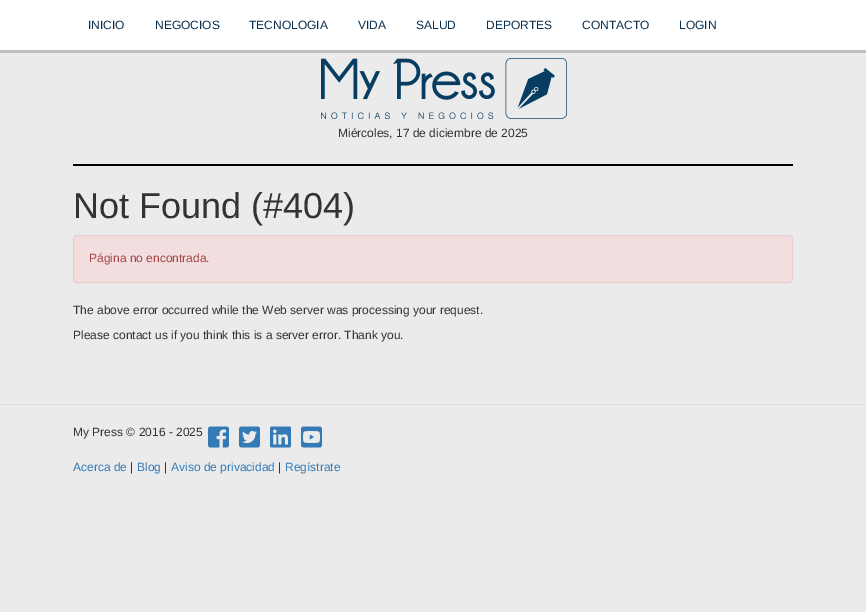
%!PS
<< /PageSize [866 612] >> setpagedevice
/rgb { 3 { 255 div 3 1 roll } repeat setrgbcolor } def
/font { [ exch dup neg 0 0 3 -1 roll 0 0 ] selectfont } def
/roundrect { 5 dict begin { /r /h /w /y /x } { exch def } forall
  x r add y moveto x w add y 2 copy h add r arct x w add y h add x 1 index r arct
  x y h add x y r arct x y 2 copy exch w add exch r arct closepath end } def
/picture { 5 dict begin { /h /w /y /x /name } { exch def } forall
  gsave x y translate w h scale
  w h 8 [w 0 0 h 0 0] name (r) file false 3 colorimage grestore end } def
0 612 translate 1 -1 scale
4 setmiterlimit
235 235 235 rgb
0 0 866 612 rectfill
255 255 255 rgb
0 0 866 50 rectfill
192 192 192 rgb
0 50 866 3 rectfill
(img/1.rgb) 321 58 246 61 picture
0 0 0 rgb
73 164 720 2 rectfill
242 222 222 rgb
73.5 235.5 719 47 3.5 roundrect gsave fill grestore
235 204 209 rgb
stroke
221 221 221 rgb
0 404 866 1 rectfill
(img/2.rgb) 208 426 21 22 picture
(img/3.rgb) 239 426 21 22 picture
(img/4.rgb) 270 426 21 22 picture
(img/5.rgb) 301 426 21 22 picture
/LiberationSans-Regular 12 font
7 46 78 rgb
[
  [(INICIO) 88 29]
  [(NEGOCIOS) 155 29]
  [(TECNOLOGIA) 249 29]
  [(VIDA) 358 29]
  [(SALUD) 416 29]
  [(DEPORTES) 486 29]
  [(CONTACTO) 582 29]
  [(LOGIN) 679 29]
] { aload pop moveto show } forall
51 51 51 rgb
338 137 moveto (Miércoles, 17 de diciembre de 2025) show
/LiberationSans-Regular 36 font
73 218 moveto (Not Found \(#404\)) show
/LiberationSans-Regular 12 font
169 68 66 rgb
89 262 moveto (Página no encontrada.) show
51 51 51 rgb
[
  [(The above error occurred while the Web server was processing your request.) 73 314]
  [(Please contact us if you think this is a server error. Thank you.) 73 339]
  [(My Press © 2016 - 2025) 73 436]
] { aload pop moveto show } forall
51 122 183 rgb
73 471 moveto (Acerca de) show
51 51 51 rgb
130 471 moveto (|) show
51 122 183 rgb
137 471 moveto (Blog) show
51 51 51 rgb
164 471 moveto (|) show
51 122 183 rgb
171 471 moveto (Aviso de privacidad) show
51 51 51 rgb
278 471 moveto (|) show
51 122 183 rgb
285 471 moveto (Regístrate) show
showpage
